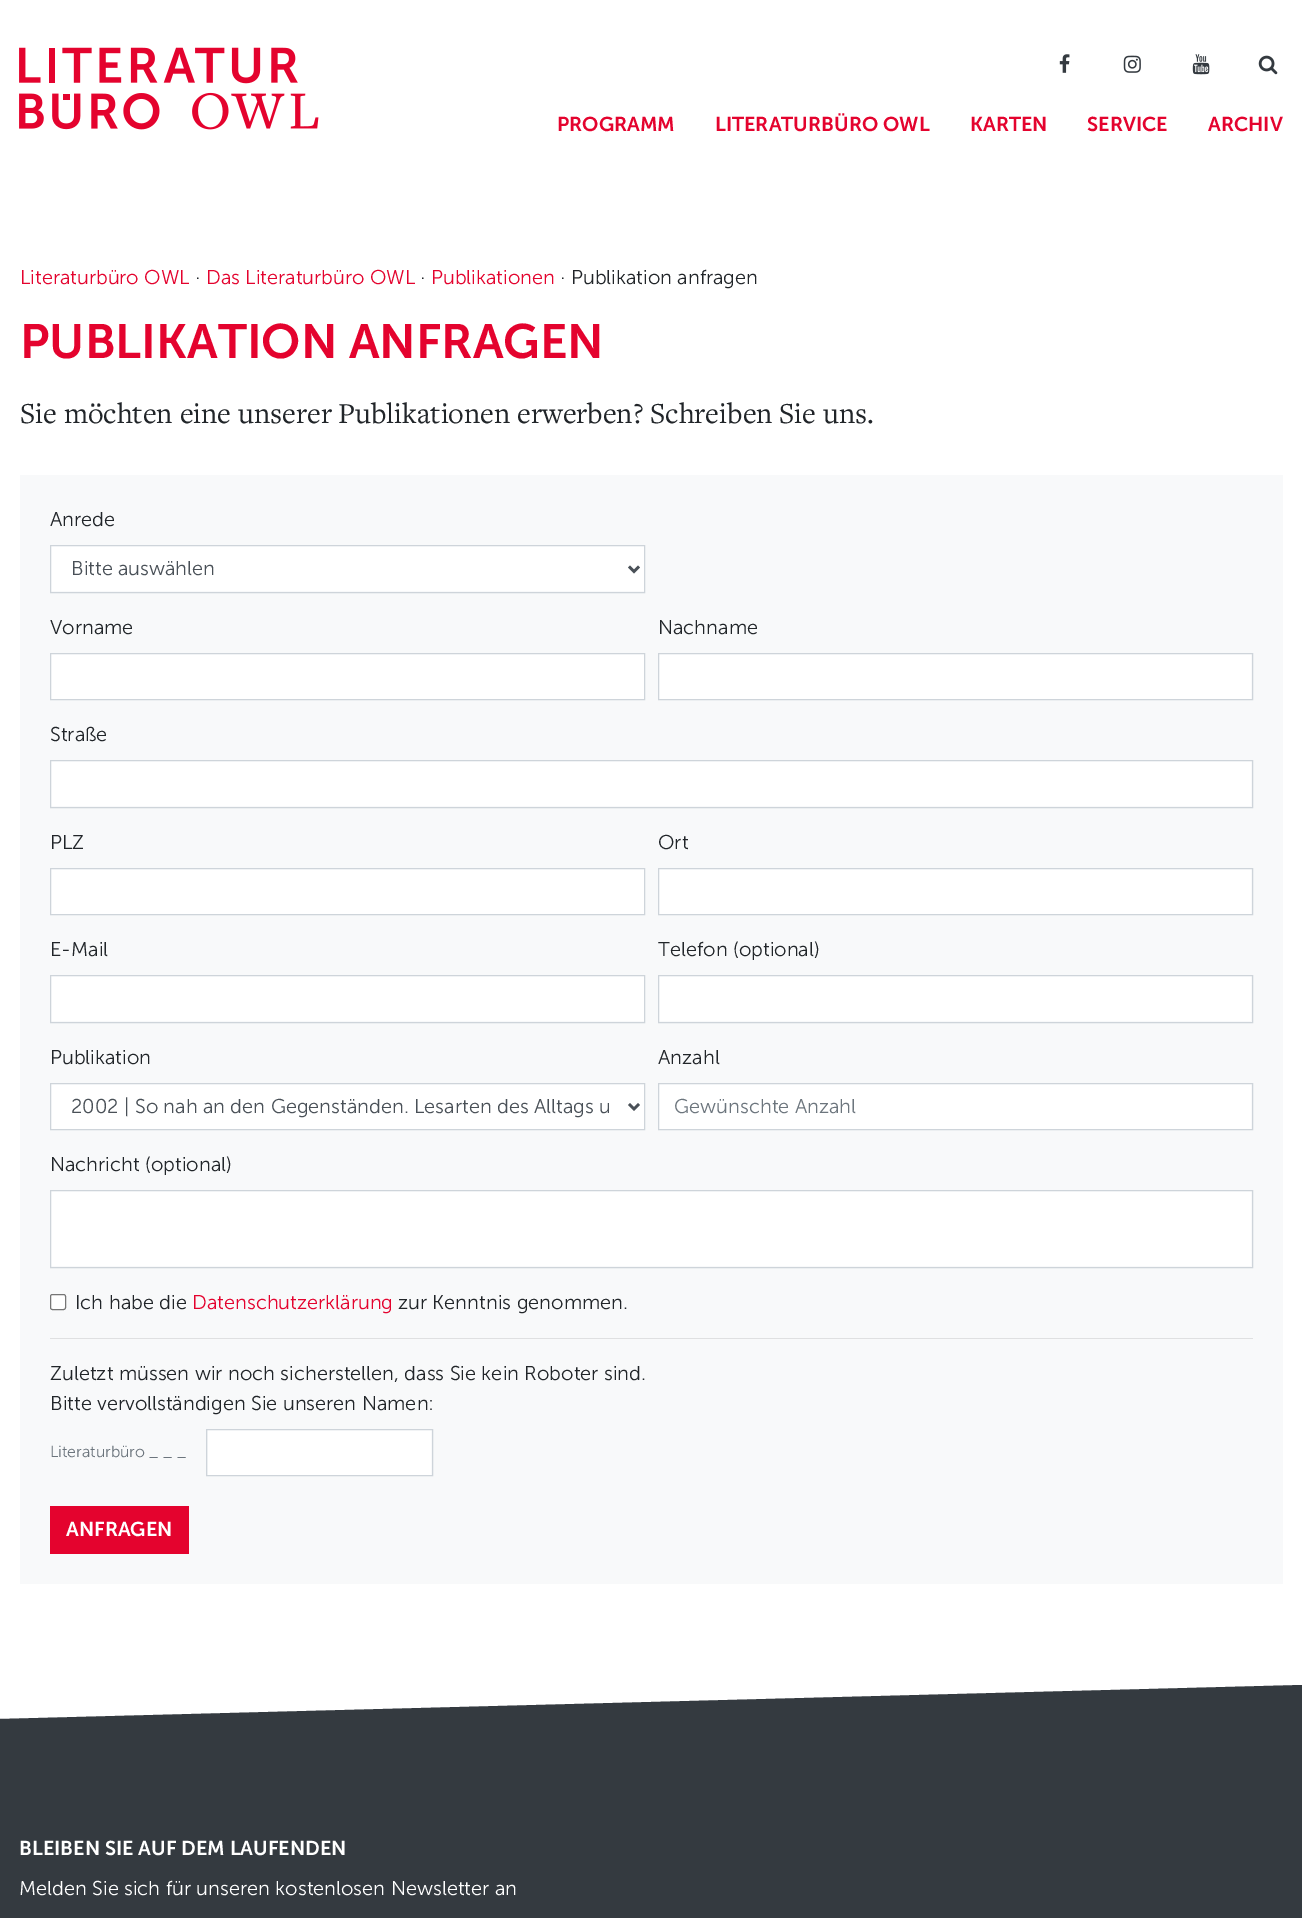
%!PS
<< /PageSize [1302 1918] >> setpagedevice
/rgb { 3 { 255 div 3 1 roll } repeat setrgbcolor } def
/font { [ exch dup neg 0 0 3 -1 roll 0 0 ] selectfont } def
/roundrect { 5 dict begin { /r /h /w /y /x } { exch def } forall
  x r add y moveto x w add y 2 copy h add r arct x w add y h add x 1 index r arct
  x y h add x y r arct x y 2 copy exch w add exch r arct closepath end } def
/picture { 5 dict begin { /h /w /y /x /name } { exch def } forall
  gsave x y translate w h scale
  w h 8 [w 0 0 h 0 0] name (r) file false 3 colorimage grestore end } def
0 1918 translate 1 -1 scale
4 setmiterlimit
255 255 255 rgb
0 0 1302 1918 rectfill
(img/1.rgb) 19 47 300 83 picture
(img/2.rgb) 1059 54 11 19 picture
(img/3.rgb) 1123 55 18 18 picture
(img/4.rgb) 1192 54 18 21 picture
(img/5.rgb) 1258 55 20 20 picture
248 249 250 rgb
20 475 1263 1109 rectfill
255 255 255 rgb
51 546 593 45 rectfill
206 212 218 rgb
50.5 545.5 594 47 rectstroke
73 80 87 rgb
2.5 setlinewidth
629 566.5 moveto 634 571.5 lineto 639 566.5 lineto stroke
255 255 255 rgb
50.5 653.5 moveto 644.5 653.5 lineto 644.5 699.5 lineto 50.5 699.5 lineto closepath gsave fill grestore
206 212 218 rgb
1 setlinewidth
stroke
255 255 255 rgb
659 654 592 45 rectfill
206 212 218 rgb
658.5 653.5 594 46 rectstroke
255 255 255 rgb
51 761 1200 45 rectfill
206 212 218 rgb
50.5 760.5 1202 47 rectstroke
255 255 255 rgb
50.5 868.5 moveto 644.5 868.5 lineto 644.5 914.5 lineto 50.5 914.5 lineto closepath gsave fill grestore
206 212 218 rgb
stroke
255 255 255 rgb
659 869 592 45 rectfill
206 212 218 rgb
658.5 868.5 594 46 rectstroke
255 255 255 rgb
51 976 593 45 rectfill
206 212 218 rgb
50.5 975.5 594 47 rectstroke
255 255 255 rgb
659 976 592 45 rectfill
206 212 218 rgb
658.5 975.5 594 47 rectstroke
255 255 255 rgb
50.5 1083.5 moveto 644.5 1083.5 lineto 644.5 1129.5 lineto 50.5 1129.5 lineto closepath gsave fill grestore
206 212 218 rgb
stroke
73 80 87 rgb
2.5 setlinewidth
629 1104 moveto 634 1109 lineto 639 1104 lineto stroke
255 255 255 rgb
659 1084 592 45 rectfill
206 212 218 rgb
1 setlinewidth
658.5 1083.5 594 46 rectstroke
255 255 255 rgb
51 1191 1200 75 rectfill
206 212 218 rgb
50.5 1190.5 1202 77 rectstroke
255 255 255 rgb
50.5 1294.5 15 15 2 roundrect gsave fill grestore
118 118 118 rgb
stroke
223 224 225 rgb
50 1338 1203 1 rectfill
255 255 255 rgb
208 1430 223 45 rectfill
206 212 218 rgb
206.5 1429.5 226 46 rectstroke
228 3 46 rgb
50 1506 139 48 rectfill
52 58 64 rgb
0 1719 moveto 1302 1685 lineto 1302 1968 lineto 0 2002 lineto closepath fill
/MuseoSans-SemiBold 20 font
228 3 46 rgb
[
  [(PROGRAMM) 557 131]
  [(LITERATURBÜRO OWL) 715 131]
  [(KARTEN) 970 131]
  [(SERVICE) 1087 131]
  [(ARCHIV) 1208 131]
] { aload pop moveto show } forall
/MuseoSans-Light 20 font
20 284 moveto (Literaturbüro OWL) show
33 37 41 rgb
195 284 moveto (·) show
228 3 46 rgb
206 284 moveto (Das Literaturbüro OWL) show
33 37 41 rgb
420 284 moveto (·) show
228 3 46 rgb
431 284 moveto (Publikationen) show
33 37 41 rgb
560 284 moveto (· Publikation anfragen) show
/MuseoSans-SemiBold 48 font
228 3 46 rgb
20 358 moveto (PUBLIKATION ANFRAGEN) show
/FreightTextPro-Regular 30 font
33 37 41 rgb
20 423 moveto (Sie möchten eine unserer Publikationen erwerben? Schreiben Sie uns.) show
/MuseoSans-Light 20 font
50 526 moveto (Anrede) show
73 80 87 rgb
71 575 moveto (Bitte auswählen) show
33 37 41 rgb
[
  [(Vorname) 50 634]
  [(Nachname) 658 634]
  [(Straße) 50 741]
  [(PLZ) 50 849]
  [(Ort) 658 849]
  [(E-Mail) 50 956]
  [(Telefon \(optional\)) 658 956]
  [(Publikation) 50 1064]
] { aload pop moveto show } forall
gsave
71 1094 538 25 rectclip
73 80 87 rgb
71 1113 moveto (2002 | So nah an den Gegenständen. Lesarten des Alltags u) show
grestore
658 1064 moveto (Anzahl) show
108 117 125 rgb
674 1113 moveto (Gewünschte Anzahl) show
33 37 41 rgb
50 1171 moveto (Nachricht \(optional\)) show
75 1309 moveto (Ich habe die) show
228 3 46 rgb
192 1309 moveto (Datenschutzerklärung) show
33 37 41 rgb
[
  [(zur Kenntnis genommen.) 398 1309]
  [(Zuletzt müssen wir noch sicherstellen, dass Sie kein Roboter sind.) 50 1380]
  [(Bitte vervollständigen Sie unseren Namen:) 50 1410]
] { aload pop moveto show } forall
/MuseoSans-Light 16 font
108 117 125 rgb
50 1457 moveto (Literaturbüro _ _ _) show
/MuseoSans-SemiBold 20 font
255 255 255 rgb
66 1536 moveto (ANFRAGEN) show
19 1855 moveto (BLEIBEN SIE AUF DEM LAUFENDEN) show
/MuseoSans-Light 20 font
19 1895 moveto (Melden Sie sich für unseren kostenlosen Newsletter an) show
showpage
